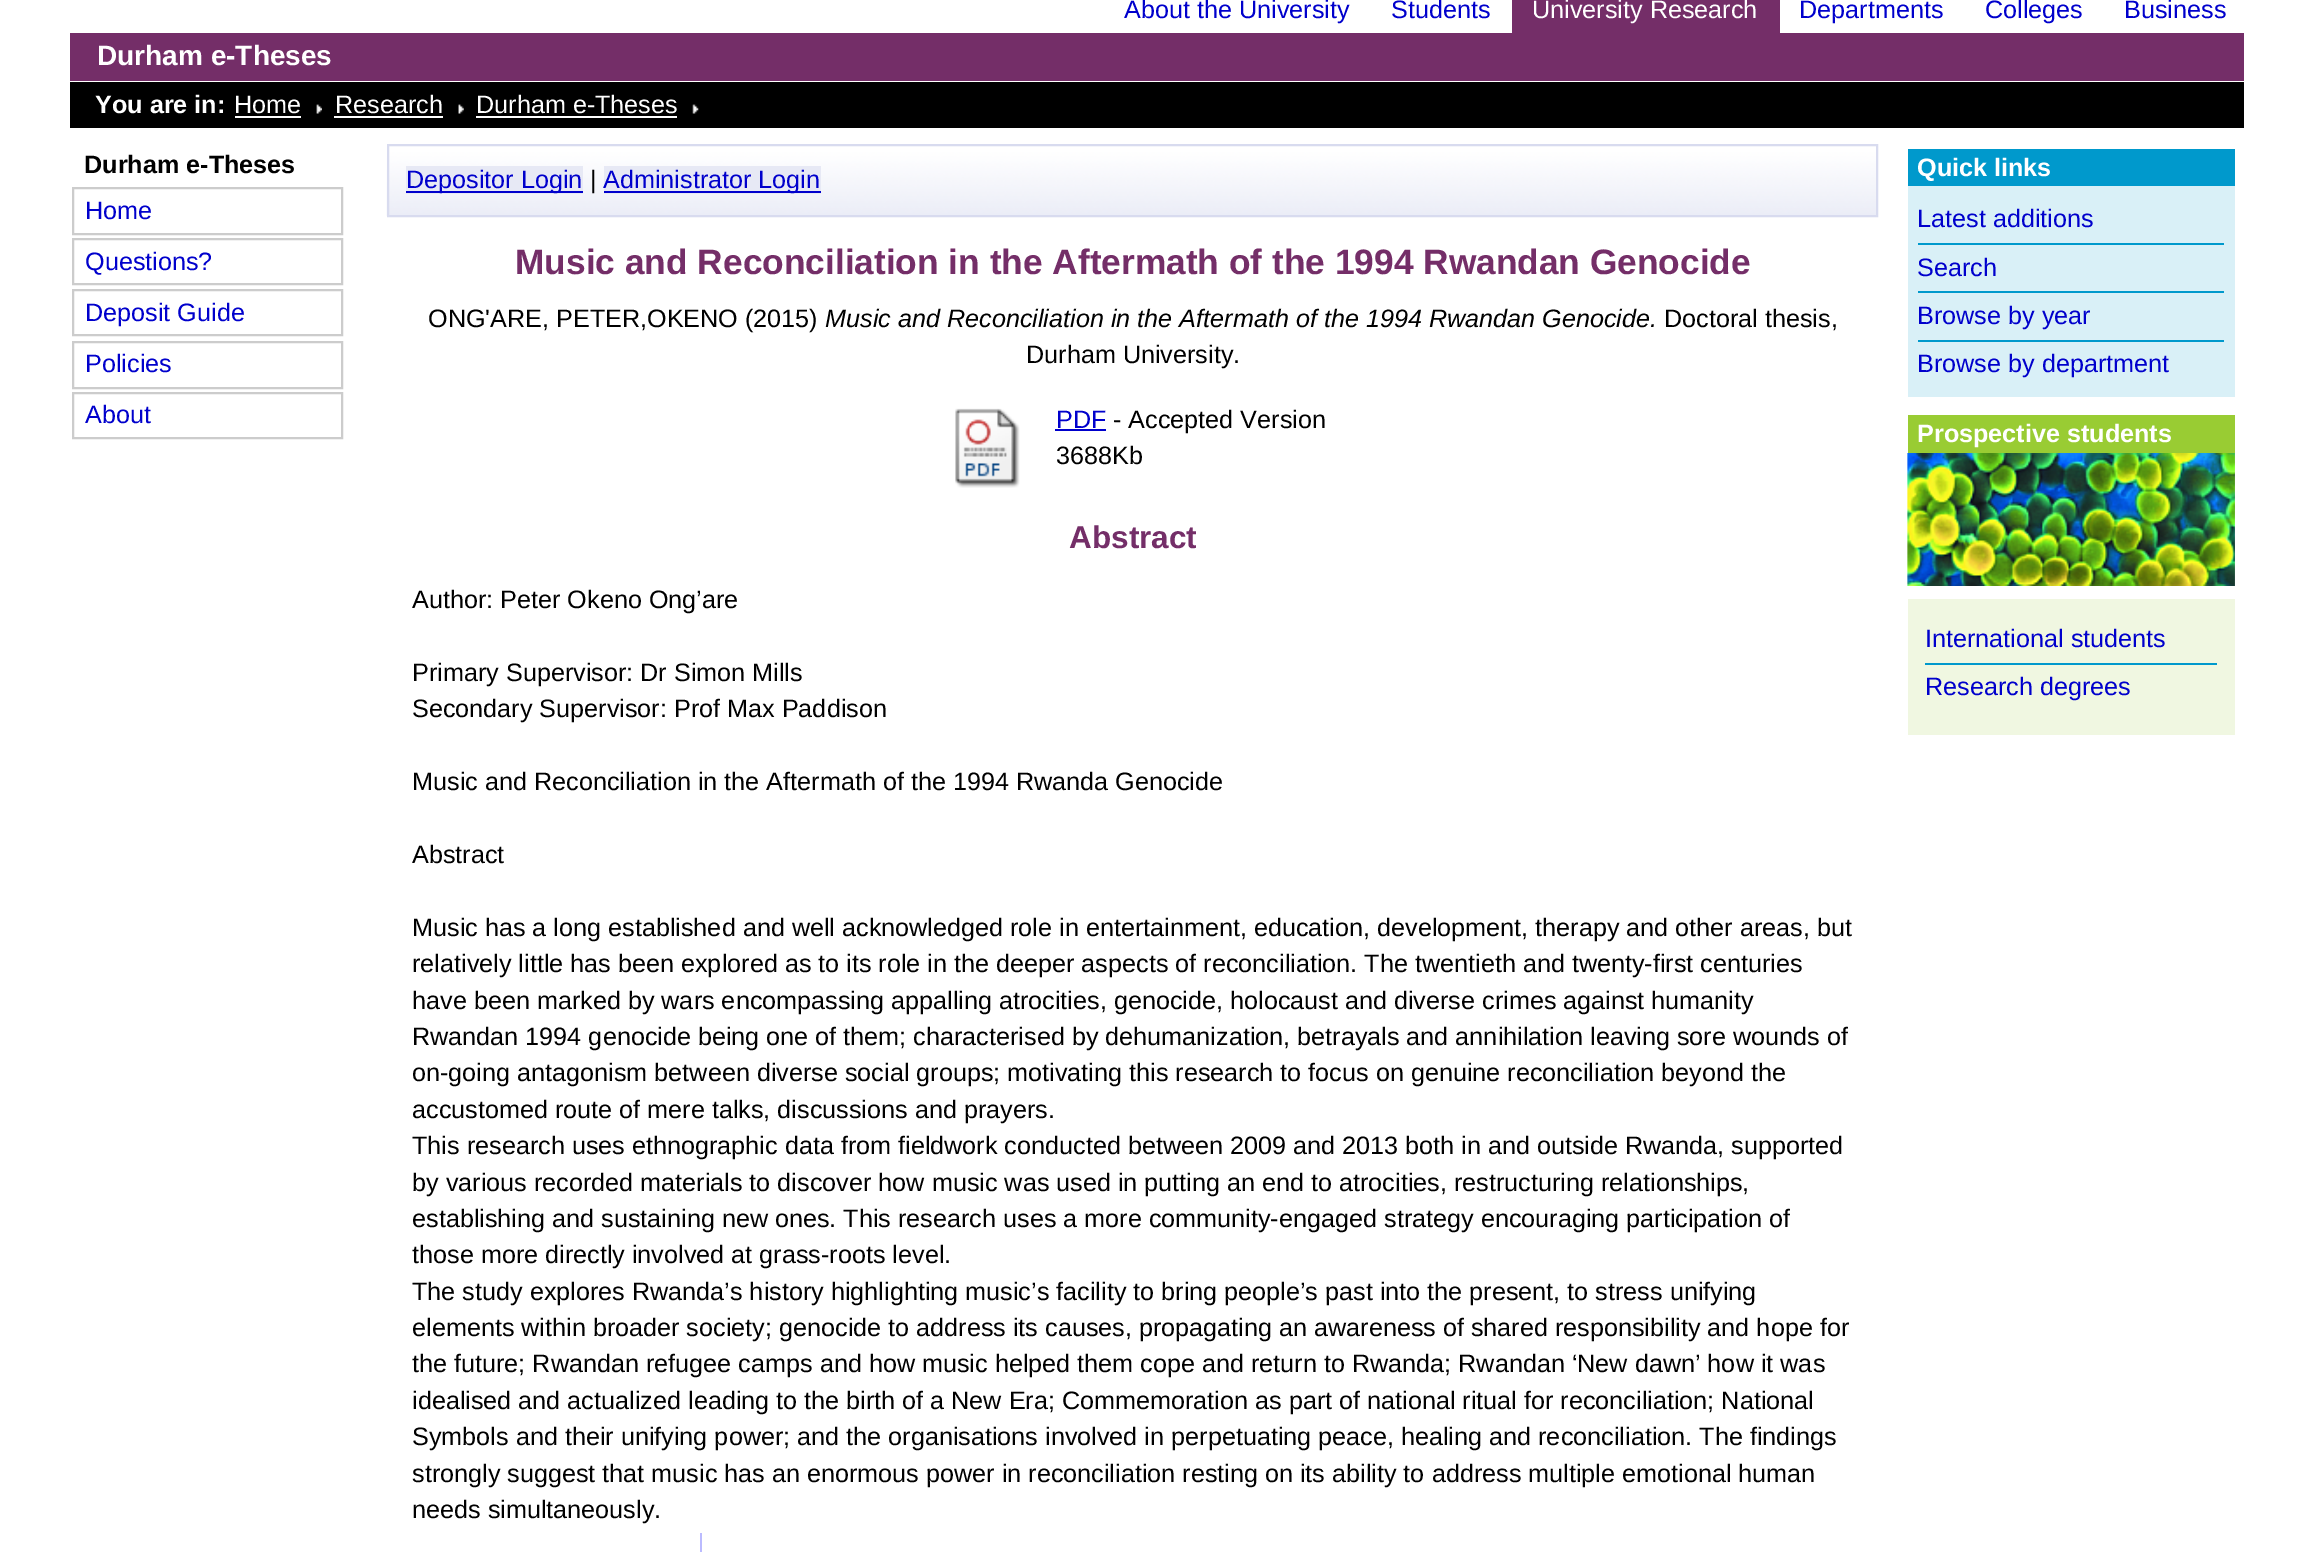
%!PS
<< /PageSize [2313 1552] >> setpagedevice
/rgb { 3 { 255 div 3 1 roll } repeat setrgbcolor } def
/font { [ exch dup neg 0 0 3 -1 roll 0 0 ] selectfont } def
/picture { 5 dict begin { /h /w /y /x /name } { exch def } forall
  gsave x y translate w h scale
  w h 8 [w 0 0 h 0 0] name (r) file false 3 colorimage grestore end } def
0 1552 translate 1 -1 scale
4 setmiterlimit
255 255 255 rgb
0 0 2313 1552 rectfill
[
  [1512 0 268 33 116 46 104]
  [70 33 2174 48 116 46 104]
  [70 82 2174 46 0 0 0]
  [235 116 66 2 255 255 255]
] { aload pop rgb rectfill } forall
(img/1.rgb) 316 104 6 10 picture
334 116 109 2 rectfill
(img/2.rgb) 458 104 6 10 picture
476 116 201 2 rectfill
(img/3.rgb) 692 104 7 10 picture
204 204 204 rgb
2 setlinewidth
73 188 269 46 rectstroke
73 239 269 45 rectstroke
73 290 269 45 rectstroke
73 342 269 46 rectstroke
73 393 269 45 rectstroke
(img/4.rgb) 386 145 1490 71 picture
216 219 239 rgb
388 145 1489 71 rectstroke
[
  [406 166 177 28 231 233 245]
  [406 191 177 2 0 0 204]
  [604 166 217 28 231 233 245]
  [604 191 217 2 0 0 204]
] { aload pop rgb rectfill } forall
(img/5.rgb) 955 408 65 80 picture
[
  [1055 429 51 2 0 0 204]
  [700 1533 2 19 187 187 255]
  [1908 186 327 211 217 240 247]
  [1908 149 327 37 0 153 204]
  [1918 243 306 2 0 153 204]
  [1918 291 306 2 0 153 204]
  [1918 340 306 2 0 153 204]
  [1908 599 327 136 240 247 225]
  [1908 415 327 38 153 204 51]
] { aload pop rgb rectfill } forall
(img/6.rgb) 1907 453 328 133 picture
(img/7.rgb) 1907 453 328 133 picture
0 153 204 rgb
1925 663 292 2 rectfill
/LiberationSans-Regular 25.2 font
0 0 204 rgb
1124 18 moveto (About the University) show
1391 18 moveto (Students) show
255 255 255 rgb
1532 18 moveto (University Research) show
0 0 204 rgb
[
  [(Departments) 1799 18]
  [(Colleges) 1985 18]
  [(Business) 2124 18]
] { aload pop moveto show } forall
/LiberationSans-Bold 28 font
255 255 255 rgb
97 65 moveto (Durham e-Theses) show
/LiberationSans-Bold 25.2 font
95 113 moveto (You are in:) show
/LiberationSans-Regular 25.2 font
[
  [(Home) 234 113]
  [(Research) 335 113]
  [(Durham e-Theses) 476 113]
] { aload pop moveto show } forall
/LiberationSans-Bold 25.2 font
0 0 0 rgb
84 173 moveto (Durham e-Theses) show
/LiberationSans-Regular 25.2 font
0 0 204 rgb
[
  [(Home) 85 219]
  [(Questions?) 85 270]
  [(Deposit Guide) 85 321]
  [(Policies) 85 372]
  [(About) 85 423]
  [(Depositor Login) 406 188]
] { aload pop moveto show } forall
0 0 0 rgb
590 188 moveto (|) show
0 0 204 rgb
603 188 moveto (Administrator Login) show
/LiberationSans-Bold 35.3 font
116 46 104 rgb
515 274 moveto (Music and Reconciliation in the Aftermath of the 1994 Rwandan Genocide) show
/LiberationSans-Regular 25.2 font
0 0 0 rgb
428 327 moveto (ONG'ARE, PETER,OKENO \(2015\)) show
/LiberationSans-Italic 25.2 font
825 327 moveto (Music and Reconciliation in the Aftermath of the 1994 Rwandan Genocide.) show
/LiberationSans-Regular 25.2 font
1664 327 moveto (Doctoral thesis,) show
1026 363 moveto (Durham University.) show
0 0 204 rgb
1056 428 moveto (PDF) show
0 0 0 rgb
1113 428 moveto (- Accepted Version) show
1056 464 moveto (3688Kb) show
/LiberationSans-Bold 31.5 font
116 46 104 rgb
1069 548 moveto (Abstract) show
/LiberationSans-Regular 25.2 font
0 0 0 rgb
[
  [(Author: Peter Okeno Ong’are) 412 608]
  [(Primary Supervisor: Dr Simon Mills) 412 681]
  [(Secondary Supervisor: Prof Max Paddison) 412 717]
  [(Music and Reconciliation in the Aftermath of the 1994 Rwanda Genocide) 412 790]
  [(Abstract) 412 863]
  [(Music has a long established and well acknowledged role in entertainment, education, development, therapy and other areas, but) 412 936]
  [(relatively little has been explored as to its role in the deeper aspects of reconciliation. The twentieth and twenty-first centuries) 412 972]
  [(have been marked by wars encompassing appalling atrocities, genocide, holocaust and diverse crimes against humanity) 412 1009]
  [(Rwandan 1994 genocide being one of them; characterised by dehumanization, betrayals and annihilation leaving sore wounds of) 412 1045]
  [(on-going antagonism between diverse social groups; motivating this research to focus on genuine reconciliation beyond the) 412 1081]
  [(accustomed route of mere talks, discussions and prayers.) 412 1118]
  [(This research uses ethnographic data from fieldwork conducted between 2009 and 2013 both in and outside Rwanda, supported) 412 1154]
  [(by various recorded materials to discover how music was used in putting an end to atrocities, restructuring relationships,) 412 1191]
  [(establishing and sustaining new ones. This research uses a more community-engaged strategy encouraging participation of) 412 1227]
  [(those more directly involved at grass-roots level.) 412 1263]
  [(The study explores Rwanda’s history highlighting music’s facility to bring people’s past into the present, to stress unifying) 412 1300]
  [(elements within broader society; genocide to address its causes, propagating an awareness of shared responsibility and hope for) 412 1336]
  [(the future; Rwandan refugee camps and how music helped them cope and return to Rwanda; Rwandan ‘New dawn’ how it was) 412 1372]
  [(idealised and actualized leading to the birth of a New Era; Commemoration as part of national ritual for reconciliation; National) 412 1409]
  [(Symbols and their unifying power; and the organisations involved in perpetuating peace, healing and reconciliation. The findings) 412 1445]
  [(strongly suggest that music has an enormous power in reconciliation resting on its ability to address multiple emotional human) 412 1482]
  [(needs simultaneously.) 412 1518]
] { aload pop moveto show } forall
/LiberationSans-Bold 25.2 font
255 255 255 rgb
1917 176 moveto (Quick links) show
/LiberationSans-Regular 25.2 font
0 0 204 rgb
[
  [(Latest additions) 1917 227]
  [(Search) 1917 276]
  [(Browse by year) 1917 324]
  [(Browse by department) 1917 372]
] { aload pop moveto show } forall
/LiberationSans-Bold 25.2 font
255 255 255 rgb
1917 442 moveto (Prospective students) show
/LiberationSans-Regular 25.2 font
0 0 204 rgb
1925 647 moveto (International students) show
1925 695 moveto (Research degrees) show
showpage
